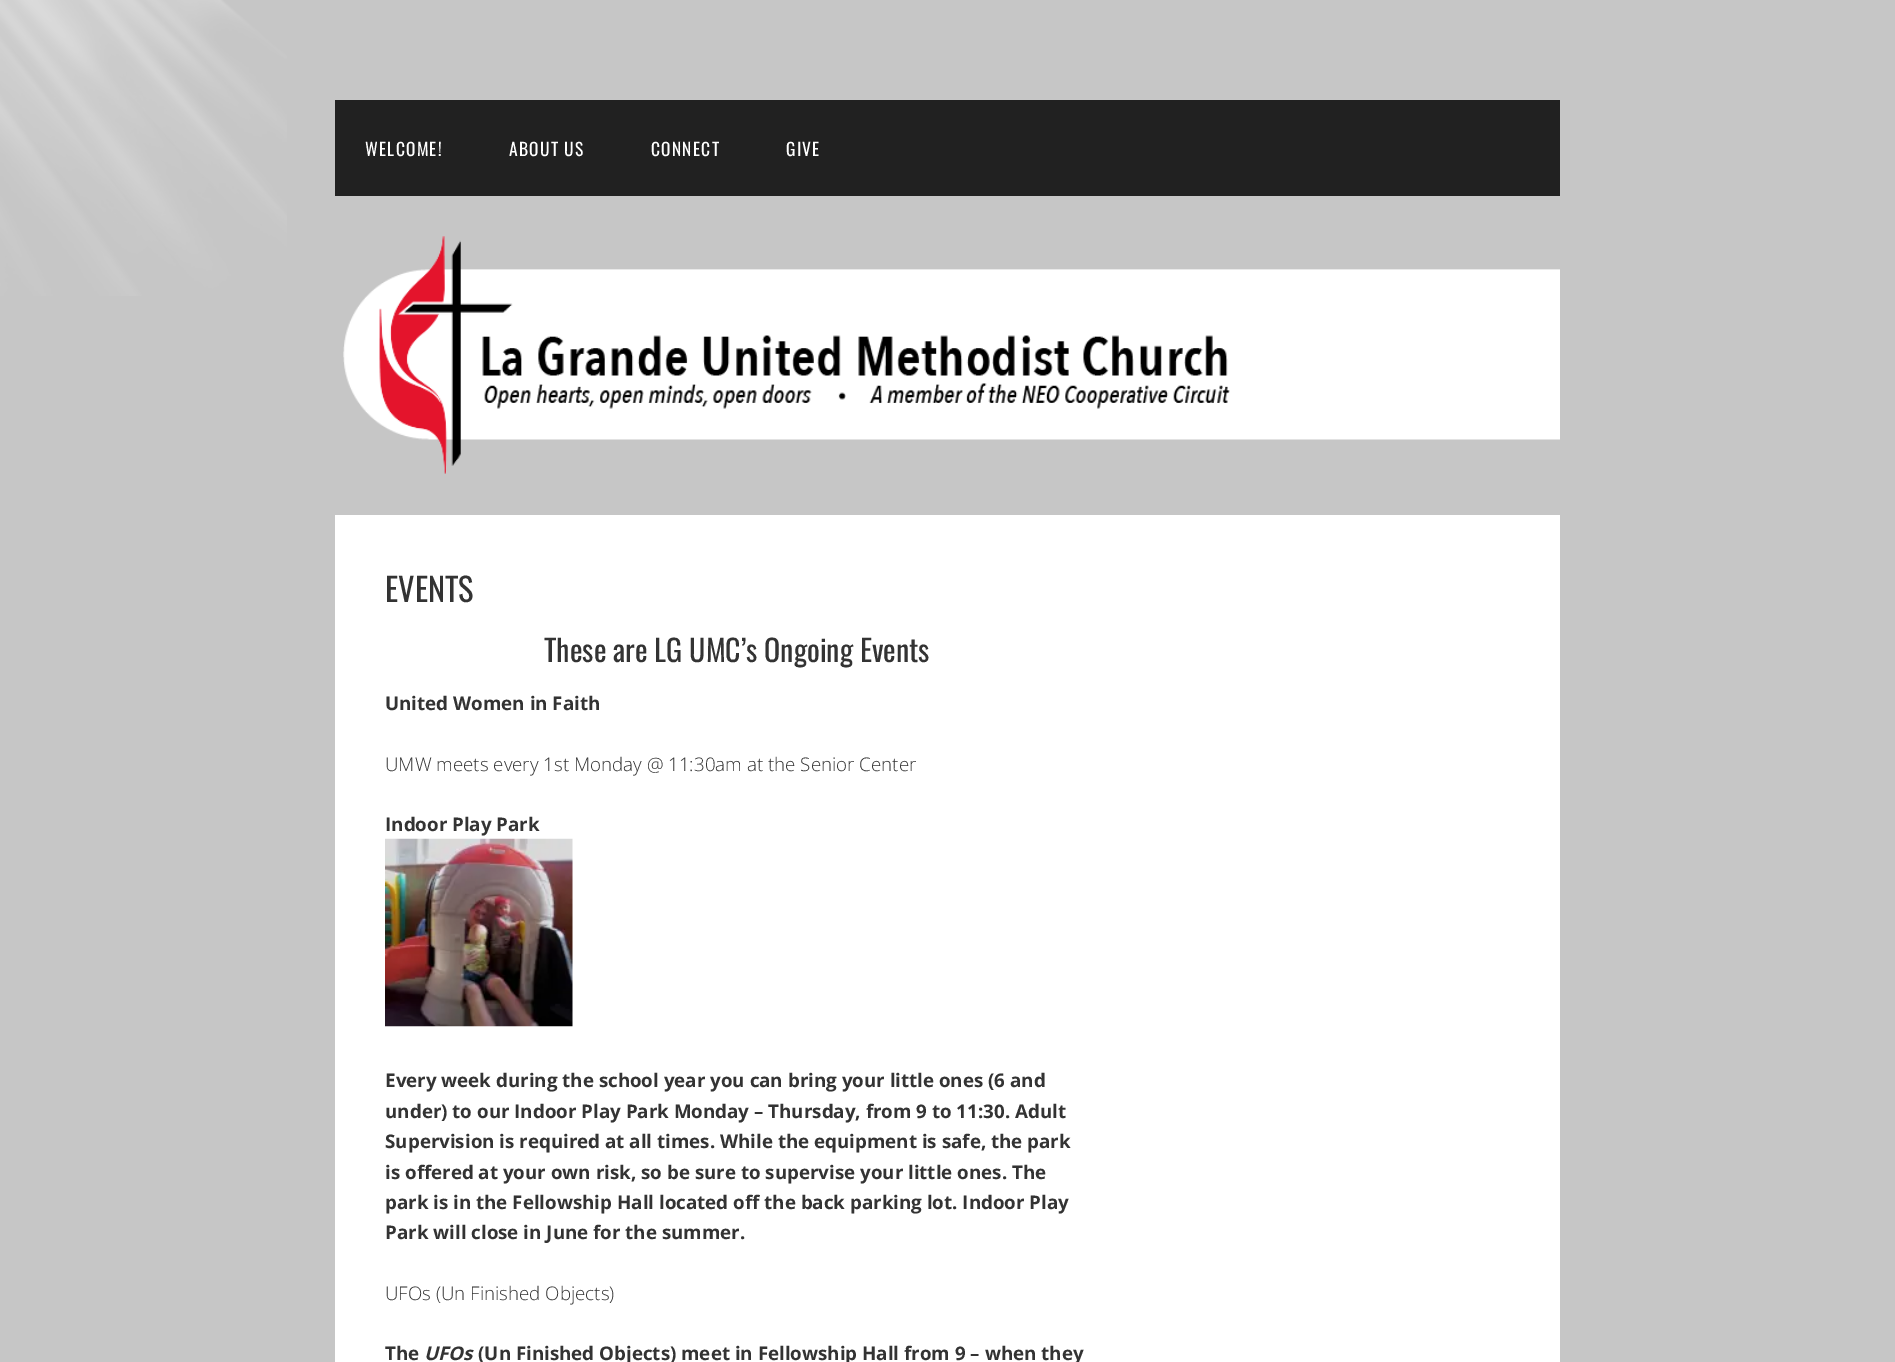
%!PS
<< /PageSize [1895 1362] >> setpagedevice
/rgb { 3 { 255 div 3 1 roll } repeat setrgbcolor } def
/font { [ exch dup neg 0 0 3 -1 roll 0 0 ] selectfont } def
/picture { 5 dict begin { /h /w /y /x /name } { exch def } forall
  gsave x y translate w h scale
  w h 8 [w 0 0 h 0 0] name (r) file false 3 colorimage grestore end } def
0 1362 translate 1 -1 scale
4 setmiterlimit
198 198 198 rgb
0 0 1895 1362 rectfill
(img/1.rgb) 0 0 287 296 picture
33 33 33 rgb
335 100 1225 96 rectfill
(img/2.rgb) 343 236 1217 238 picture
255 255 255 rgb
335 515 1225 847 rectfill
(img/3.rgb) 385 838 188 189 picture
/Oswald-Regular 17.5 font
365 156 moveto 1.25 0 (WELCOME!) ashow
509 156 moveto 1.25 0 (ABOUT US) ashow
651 156 moveto 1.25 0 (CONNECT) ashow
786 156 moveto 1.25 0 (GIVE) ashow
/Oswald-Regular 32.5 font
51 51 51 rgb
385 602 moveto (EVENTS) show
/Oswald-Regular 30 font
544 662 moveto (These are LG UMC’s Ongoing Events) show
/OpenSans-Bold 18.75 font
385 710 moveto (United Women in Faith) show
/OpenSans-Light 18.75 font
385 771 moveto (UMW meets every 1st Monday @ 11:30am at the Senior Center) show
/OpenSans-Bold 18.75 font
[
  [(Indoor Play Park) 385 831]
  [(Every week during the school year you can bring your little ones \(6 and) 385 1087]
  [(under\) to our Indoor Play Park Monday – Thursday, from 9 to 11:30. Adult) 385 1118]
  [(Supervision is required at all times. While the equipment is safe, the park) 385 1148]
  [(is offered at your own risk, so be sure to supervise your little ones. The) 385 1179]
  [(park is in the Fellowship Hall located off the back parking lot. Indoor Play) 385 1209]
  [(Park will close in June for the summer.) 385 1239]
] { aload pop moveto show } forall
/OpenSans-Light 18.75 font
385 1300 moveto (UFOs \(Un Finished Objects\)) show
/OpenSans-Bold 18.75 font
385 1360 moveto (The) show
/OpenSans-BoldItalic 18.75 font
424 1360 moveto (UFOs) show
/OpenSans-Bold 18.75 font
478 1360 moveto (\(Un Finished Objects\) meet in Fellowship Hall from 9 – when they) show
showpage
